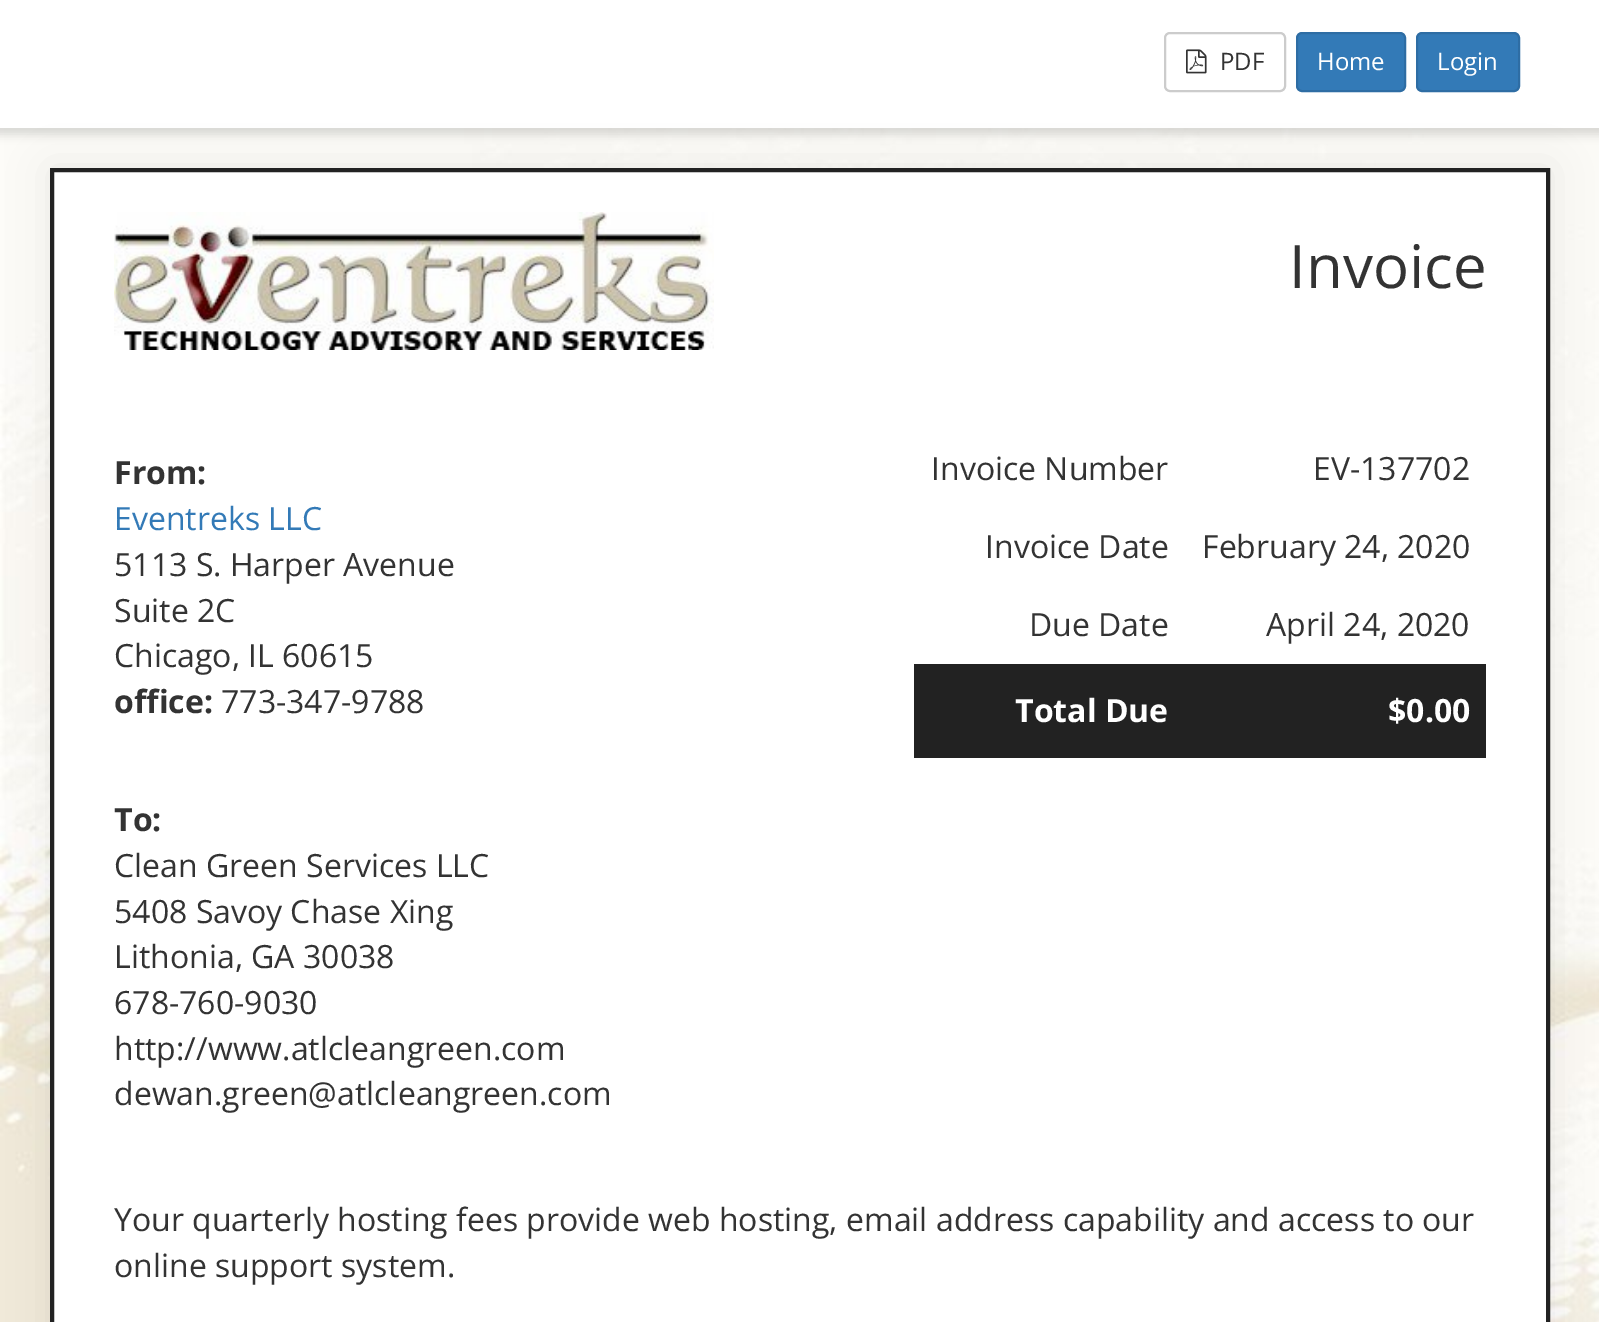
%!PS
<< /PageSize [1599 1322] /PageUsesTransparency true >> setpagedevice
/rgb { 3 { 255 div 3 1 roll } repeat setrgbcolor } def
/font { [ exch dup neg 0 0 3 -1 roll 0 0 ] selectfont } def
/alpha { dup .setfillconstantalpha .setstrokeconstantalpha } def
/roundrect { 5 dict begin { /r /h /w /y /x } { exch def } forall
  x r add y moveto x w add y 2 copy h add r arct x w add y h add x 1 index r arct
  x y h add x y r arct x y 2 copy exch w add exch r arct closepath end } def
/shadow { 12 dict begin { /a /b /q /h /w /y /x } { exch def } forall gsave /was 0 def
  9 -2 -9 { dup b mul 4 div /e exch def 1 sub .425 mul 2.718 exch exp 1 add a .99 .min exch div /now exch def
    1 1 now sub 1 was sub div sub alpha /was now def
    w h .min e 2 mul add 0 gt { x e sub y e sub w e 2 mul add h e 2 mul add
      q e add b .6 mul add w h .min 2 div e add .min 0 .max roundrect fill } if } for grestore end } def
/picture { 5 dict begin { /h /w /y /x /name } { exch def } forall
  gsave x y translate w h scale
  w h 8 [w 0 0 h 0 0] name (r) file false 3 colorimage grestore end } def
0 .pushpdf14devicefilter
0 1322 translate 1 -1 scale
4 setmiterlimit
255 255 255 rgb
0 0 1599 1322 rectfill
(img/1.rgb) 0 128 1599 1194 picture
0 0 0 rgb
-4 -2 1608 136 0 5 0.15 shadow
255 255 255 rgb
0 0 1599 128 rectfill
204 204 204 rgb
2 setlinewidth
1165 33 120 58 5 roundrect stroke
(img/2.rgb) 1186 49 21 25 picture
51 122 183 rgb
1297 33 108 58 5 roundrect gsave fill grestore
46 109 164 rgb
stroke
51 122 183 rgb
1417 33 102 58 5 roundrect gsave fill grestore
46 109 164 rgb
stroke
0 0 0 rgb
50 168 1500 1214 0 20 0.07 shadow
255 255 255 rgb
52 170 moveto 1548 170 lineto 1548 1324 lineto 52 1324 lineto closepath gsave fill grestore
34 34 34 rgb
4 setlinewidth
stroke
(img/3.rgb) 114 212 600 138 picture
914 664 572 94 rectfill
/OpenSans-Regular 24 font
51 51 51 rgb
1220 70 moveto (PDF) show
255 255 255 rgb
1317 70 moveto (Home) show
1437 70 moveto (Login) show
/OpenSans-Regular 60 font
51 51 51 rgb
1289 288 moveto (Invoice) show
/OpenSans-Bold 32 font
114 484 moveto (From:) show
/OpenSans-Regular 32 font
51 122 183 rgb
114 530 moveto (Eventreks LLC) show
51 51 51 rgb
[
  [(5113 S. Harper Avenue) 114 576]
  [(Suite 2C) 114 622]
  [(Chicago, IL 60615) 114 667]
] { aload pop moveto show } forall
/OpenSans-Bold 32 font
114 713 moveto (office:) show
/OpenSans-Regular 32 font
[
  [(773-347-9788) 221 713]
  [(Invoice Number) 931 480]
  [(EV-137702) 1313 480]
  [(Invoice Date) 985 558]
  [(February 24, 2020) 1202 558]
  [(Due Date) 1029 636]
  [(April 24, 2020) 1266 636]
] { aload pop moveto show } forall
/OpenSans-Bold 32 font
255 255 255 rgb
1015 722 moveto (Total Due) show
1388 722 moveto ($0.00) show
51 51 51 rgb
114 831 moveto (To:) show
/OpenSans-Regular 32 font
[
  [(Clean Green Services LLC) 114 877]
  [(5408 Savoy Chase Xing) 114 923]
  [(Lithonia, GA 30038) 114 968]
  [(678-760-9030) 114 1014]
  [(http://www.atlcleangreen.com) 114 1060]
  [(dewan.green@atlcleangreen.com) 114 1105]
  [(Your quarterly hosting fees provide web hosting, email address capability and access to our) 114 1231]
  [(online support system.) 114 1277]
] { aload pop moveto show } forall
.poppdf14devicefilter showpage
